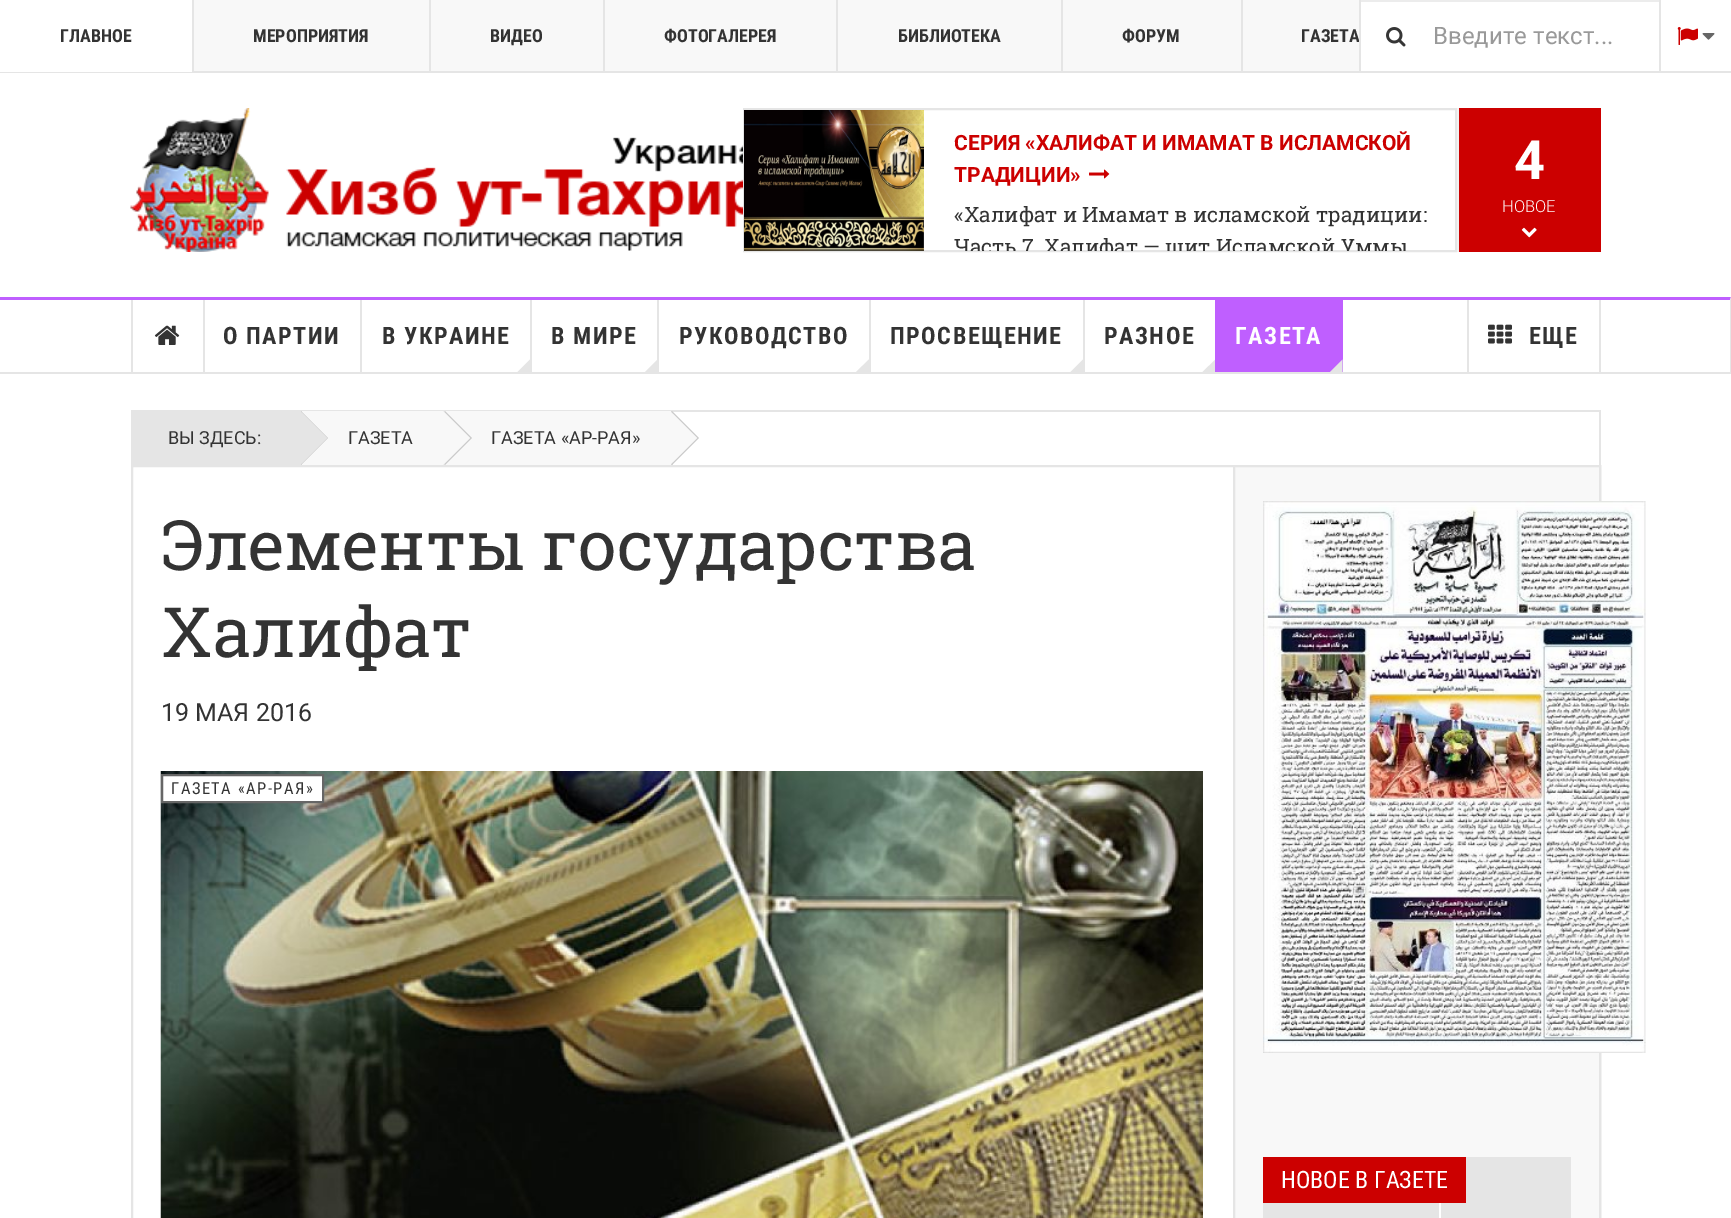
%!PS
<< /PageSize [1731 1218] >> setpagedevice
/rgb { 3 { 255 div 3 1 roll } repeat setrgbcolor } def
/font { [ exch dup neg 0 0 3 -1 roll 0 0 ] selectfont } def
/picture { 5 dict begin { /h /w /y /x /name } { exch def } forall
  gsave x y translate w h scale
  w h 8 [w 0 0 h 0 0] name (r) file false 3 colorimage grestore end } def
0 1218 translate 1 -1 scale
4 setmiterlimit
255 255 255 rgb
0 0 1731 1218 rectfill
[
  [194 0 1165 71 248 248 248]
  [0 71 1731 2 229 229 229]
  [0 71 192 1 255 255 255]
  [192 0 2 72 229 229 229]
  [429 0 2 72 229 229 229]
  [603 0 2 72 229 229 229]
  [836 0 2 72 229 229 229]
  [1061 0 2 72 229 229 229]
  [1241 0 2 72 229 229 229]
] { aload pop rgb rectfill } forall
(img/1.rgb) 1386 27 20 20 picture
236 236 236 rgb
1361 0 298 2 rectfill
229 229 229 rgb
1659 0 2 71 rectfill
(img/2.rgb) 1677 27 21 18 picture
(img/3.rgb) 1702 33 13 7 picture
(img/4.rgb) 130 108 613 144 picture
2 setlinewidth
744 109 712 142 rectstroke
(img/5.rgb) 744 110 180 141 picture
(img/6.rgb) 1089 169 21 10 picture
204 0 0 rgb
1459 108 142 144 rectfill
242 242 242 rgb
1457 108 2 144 rectfill
(img/7.rgb) 1521 227 16 11 picture
191 95 255 rgb
0 297 moveto 1731 297 lineto 1730 300 lineto 0 300 lineto closepath fill
229 229 229 rgb
1731 297 moveto 1731 374 lineto 1730 372 lineto 1730 300 lineto closepath fill
[
  [0 372 1731 2 229 229 229]
  [131 300 2 72 229 229 229]
  [203 300 2 72 229 229 229]
] { aload pop rgb rectfill } forall
(img/8.rgb) 154 325 26 20 picture
360 300 2 72 rectfill
530 300 2 72 rectfill
517.5 372 moveto 530 359.5 lineto 530 372 lineto closepath fill
657 300 2 72 rectfill
645 372 moveto 657.5 359.5 lineto 657.5 372 lineto closepath fill
869 300 2 72 rectfill
856 372 moveto 869 359.5 lineto 869 372 lineto closepath fill
1083 300 2 72 rectfill
1070.5 372 moveto 1083 359.5 lineto 1083 372 lineto closepath fill
1202.5 372 moveto 1215.5 359.5 lineto 1215.5 372 lineto closepath fill
191 95 255 rgb
1215 300 128 72 rectfill
229 229 229 rgb
1330 372 moveto 1342.5 359.5 lineto 1342.5 372 lineto closepath fill
1467 300 2 72 rectfill
1599 300 2 72 rectfill
(img/9.rgb) 1488 324 24 20 picture
[
  [131 410 1470 2 229 229 229]
  [1599 410 2 55 229 229 229]
  [131 410 2 55 229 229 229]
  [133 412 169 53 229 229 229]
  [302 411 141 54 248 248 248]
] { aload pop rgb rectfill } forall
204 204 204 rgb
301 411 moveto 301 412 lineto 327 438 lineto 301 464 lineto 301 465 lineto 328 438 lineto closepath fill
229 229 229 rgb
300 411 moveto 327 438 lineto 300 465 lineto 273 438 lineto closepath fill
443 411 1 54 rectfill
248 248 248 rgb
444 411 227 54 rectfill
204 204 204 rgb
445 411 moveto 444 412 lineto 470 438 lineto 444 464 lineto 445 465 lineto 472 438 lineto closepath fill
248 248 248 rgb
443 411 moveto 470 438 lineto 443 465 lineto 416 438 lineto closepath fill
229 229 229 rgb
671 411 2 54 rectfill
204 204 204 rgb
672 411 moveto 671 412 lineto 697 438 lineto 671 464 lineto 672 465 lineto 699 438 lineto closepath fill
248 248 248 rgb
670 411 moveto 697 438 lineto 670 465 lineto 643 438 lineto closepath fill
229 229 229 rgb
132 466 1468 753 rectstroke
(img/10.rgb) 160 771 1043 447 picture
255 255 255 rgb
162 775 moveto 323 775 lineto 323 802 lineto 162 802 lineto closepath gsave fill grestore
102 102 102 rgb
stroke
248 248 248 rgb
1234 466 moveto 1600 466 lineto 1600 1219 lineto 1234 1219 lineto closepath gsave fill grestore
229 229 229 rgb
stroke
(img/11.rgb) 1263 501 383 552 picture
[
  [1263 1157 308 61 229 229 229]
  [1263 1157 203 46 204 0 0]
  [1439 1203 2 15 255 255 255]
] { aload pop rgb rectfill } forall
/RobotoCondensed-Bold 18 font
51 51 51 rgb
[
  [(ГЛАВНОЕ) 60 42]
  [(МЕРОПРИЯТИЯ) 253 42]
  [(ВИДЕО) 490 42]
  [(ФОТОГАЛЕРЕЯ) 664 42]
  [(БИБЛИОТЕКА) 898 42]
  [(ФОРУМ) 1122 42]
  [(ГАЗЕТА) 1301 42]
] { aload pop moveto show } forall
229 229 229 rgb
1359 0 2 71 rectfill
/Roboto-Regular 24 font
153 153 153 rgb
1433 44 moveto (Введите текст...) show
/Roboto-Bold 21 font
204 0 0 rgb
954 150 moveto (СЕРИЯ «ХАЛИФАТ И ИМАМАТ В ИСЛАМСКОЙ) show
954 182 moveto (ТРАДИЦИИ») show
/RobotoSlab-Regular 21 font
51 51 51 rgb
954 222 moveto («Халифат и Имамат в исламской традиции:) show
gsave
954 198 501 53 rectclip
954 254 moveto (Часть 7. Халифат — щит Исламской Уммы) show
grestore
/Roboto-Bold 54 font
255 255 255 rgb
1514 179 moveto (4) show
/Roboto-Light 16.5 font
1502 212 moveto (НОВОЕ) show
/RobotoCondensed-Bold 24 font
51 51 51 rgb
223 344 moveto 1.5 0 (О ПАРТИИ) ashow
382 344 moveto 1.5 0 (В УКРАИНЕ) ashow
551 344 moveto 1.5 0 (В МИРЕ) ashow
679 344 moveto 1.5 0 (РУКОВОДСТВО) ashow
890 344 moveto 1.5 0 (ПРОСВЕЩЕНИЕ) ashow
1104 344 moveto 1.5 0 (РАЗНОЕ) ashow
255 255 255 rgb
1235 344 moveto 1.5 0 (ГАЗЕТА) ashow
51 51 51 rgb
1529 344 moveto 1.5 0 (ЕЩЕ) ashow
/Roboto-Regular 18 font
[
  [(ВЫ ЗДЕСЬ:) 168 444]
  [(ГАЗЕТА) 348 444]
  [(ГАЗЕТА «АР-РАЯ») 491 444]
] { aload pop moveto show } forall
/RobotoSlab-Regular 69.4 font
161 570 moveto (Элементы государства) show
161 657 moveto (Халифат) show
/Roboto-Regular 25 font
161 721 moveto (19 МАЯ 2016) show
/RobotoCondensed-Regular 16.5 font
171 794 moveto 1.5 0 (ГАЗЕТА «АР-РАЯ») ashow
/RobotoCondensed-Regular 24 font
255 255 255 rgb
1281 1188 moveto (НОВОЕ В ГАЗЕТЕ) show
showpage
